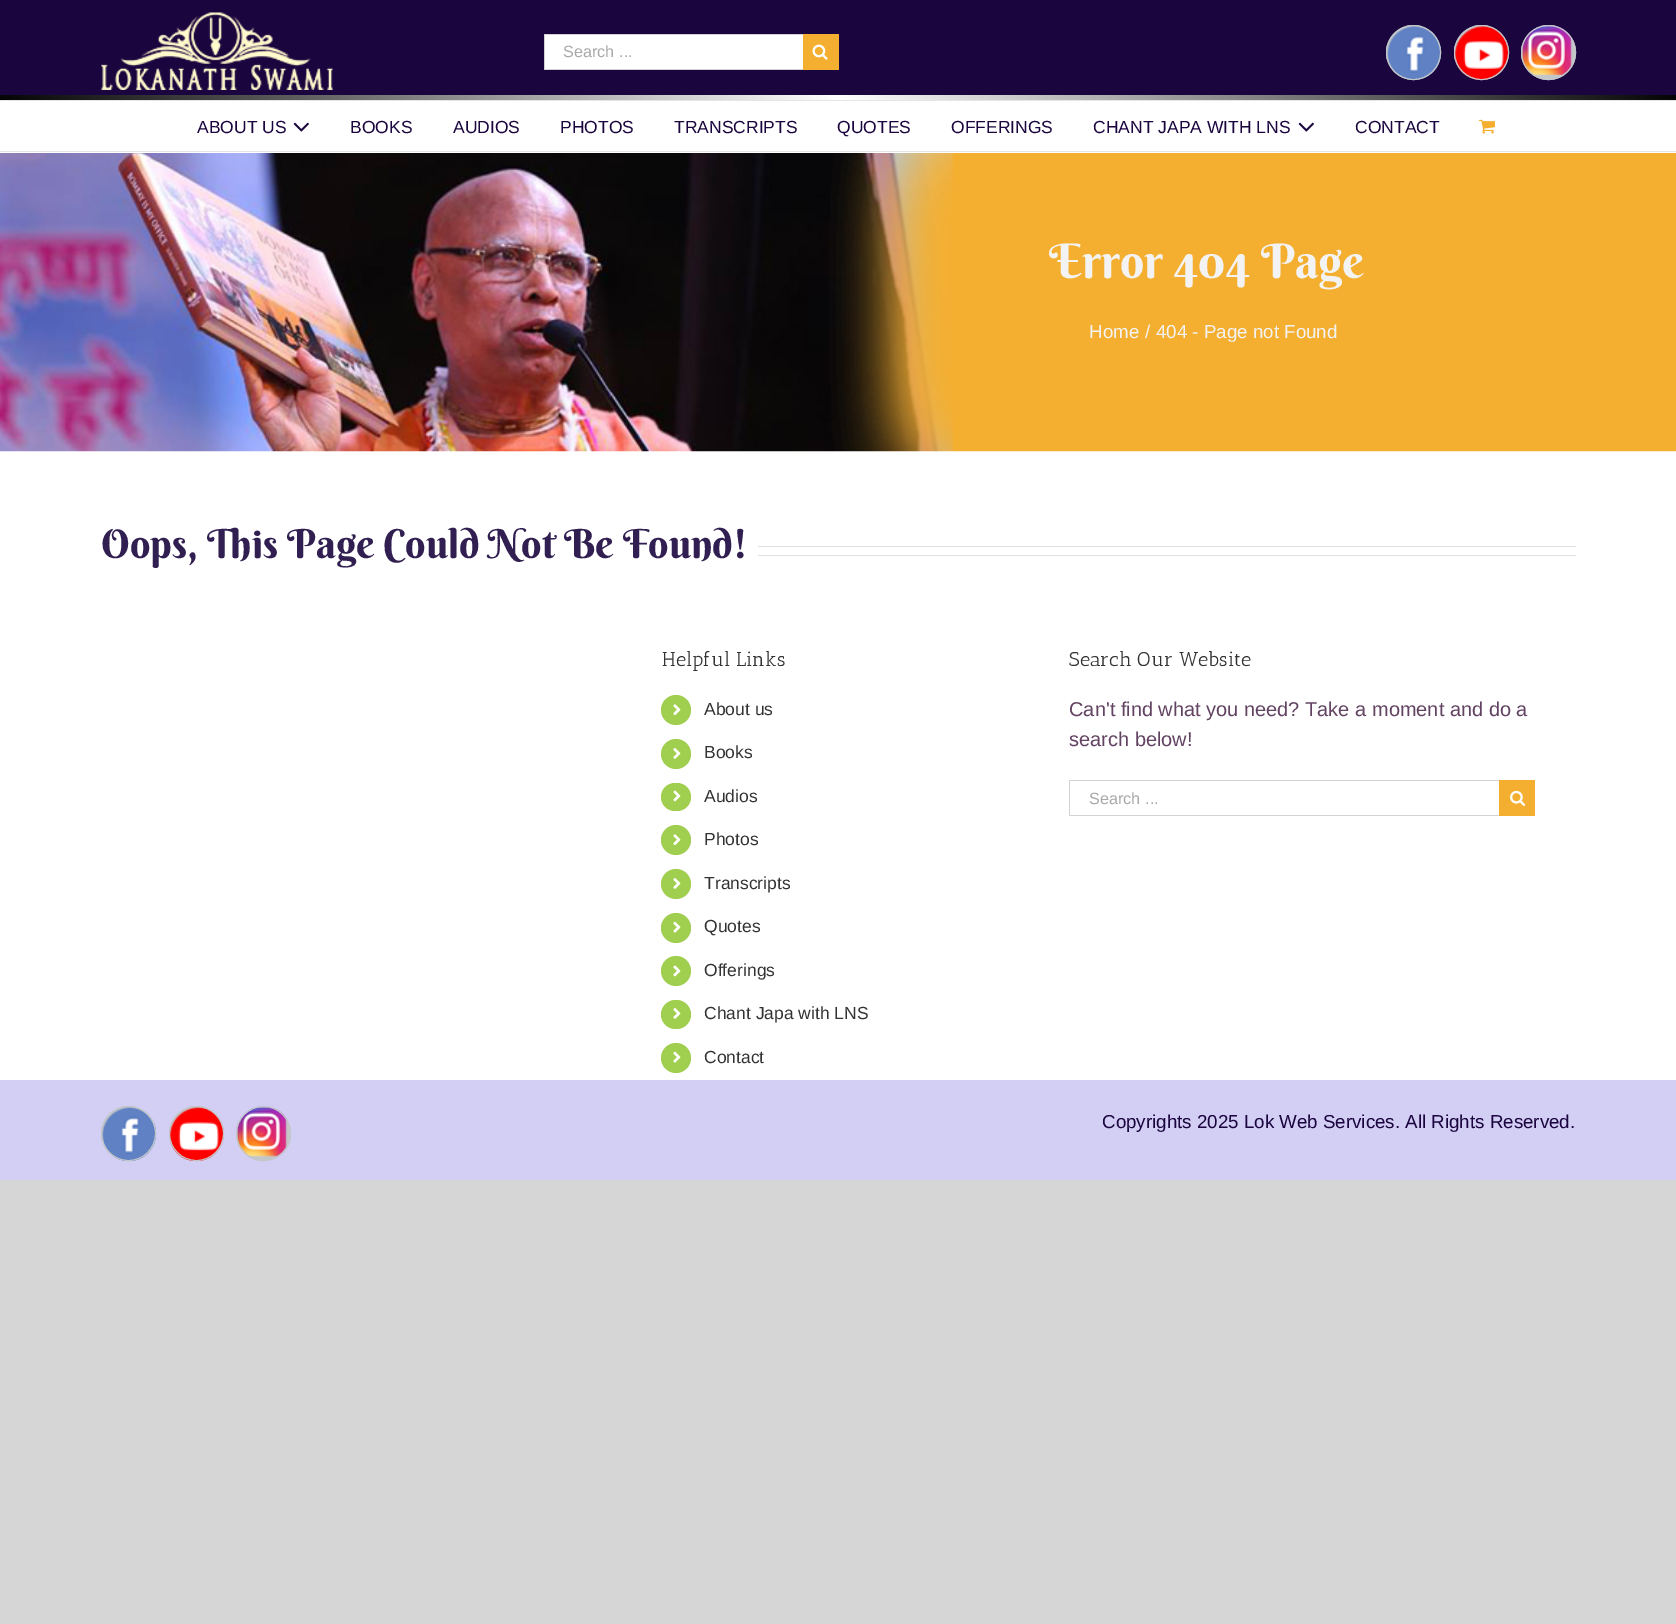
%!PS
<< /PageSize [1676 1624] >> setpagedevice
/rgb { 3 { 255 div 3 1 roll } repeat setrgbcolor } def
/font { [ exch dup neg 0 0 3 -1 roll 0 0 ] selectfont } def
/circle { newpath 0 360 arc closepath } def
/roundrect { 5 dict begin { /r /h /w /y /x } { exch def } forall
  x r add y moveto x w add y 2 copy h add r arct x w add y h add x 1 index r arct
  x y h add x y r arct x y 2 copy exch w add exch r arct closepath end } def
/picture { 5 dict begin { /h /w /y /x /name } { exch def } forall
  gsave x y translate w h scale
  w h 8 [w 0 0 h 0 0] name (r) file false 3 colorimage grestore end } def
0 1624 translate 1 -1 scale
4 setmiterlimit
215 214 214 rgb
0 0 1676 1624 rectfill
[
  [0 451 1676 629 255 255 255]
  [0 0 1676 95 26 5 62]
  [0 100 1676 1 229 229 229]
] { aload pop rgb rectfill } forall
(img/1.rgb) 101 12 232 78 picture
[
  [545 35 258 34 255 255 255]
  [544 34 259 1 210 210 210]
  [544 69 259 1 210 210 210]
  [544 34 1 36 210 210 210]
  [803 34 36 36 244 175 48]
] { aload pop rgb rectfill } forall
(img/2.rgb) 812 44 16 16 picture
195 199 202 rgb
1413.5 52.5 27.5 circle fill
(img/3.rgb) 1387 26 55 54 picture
1413.5 52.5 27 circle stroke
1481.5 52.5 27.5 circle fill
(img/4.rgb) 1455 26 54 54 picture
1481.5 52.5 27 circle stroke
1548.5 52.5 27.5 circle fill
(img/5.rgb) 1522 26 50 49 picture
1548.5 52.5 27 circle stroke
gsave 0 95 moveto 1676 95 lineto 1676 100 lineto 0 100 lineto closepath clip newpath
<< /ShadingType 2 /ColorSpace /DeviceRGB /Coords [418 518 1258 -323] /Extend [true true] /Function << /FunctionType 3 /Domain [0 1] /Functions [<< /FunctionType 2 /Domain [0 1] /C0 [0.016 0.016 0.016] /C1 [1 1 1] /N 1 >> << /FunctionType 2 /Domain [0 1] /C0 [1 1 1] /C1 [0.016 0.016 0.016] /N 1 >>] /Bounds [0.5] /Encode [0 1 0 1] >> >> shfill grestore
255 255 255 rgb
0 101 1676 52 rectfill
229 229 229 rgb
0 151 1676 1 rectfill
(img/6.rgb) 293 122 16 10 picture
(img/6.rgb) 1298 122 16 10 picture
(img/7.rgb) 1478 119 17 15 picture
(img/8.rgb) 0 153 1676 299 picture
224 222 222 rgb
758 546 818 1 rectfill
758 555 818 1 rectfill
160 206 78 rgb
676 710 15 circle fill
(img/9.rgb) 673 704 8 12 picture
676 754 15 circle fill
(img/10.rgb) 673 748 8 11 picture
661 783 30 28 14 roundrect fill
(img/11.rgb) 673 790 8 12 picture
676 840 15 circle fill
(img/9.rgb) 673 834 8 12 picture
676 884 15 circle fill
(img/10.rgb) 673 878 8 11 picture
676 928 15 circle fill
(img/12.rgb) 673 921 8 12 picture
676 971 15 circle fill
(img/11.rgb) 673 965 8 12 picture
661 1000 30 29 14.5 roundrect fill
(img/10.rgb) 673 1008 8 11 picture
676 1058 15 circle fill
(img/12.rgb) 673 1051 8 12 picture
[
  [1069 780 430 1 210 210 210]
  [1069 815 430 1 210 210 210]
  [1069 780 1 36 210 210 210]
  [1499 780 36 36 244 175 48]
] { aload pop rgb rectfill } forall
(img/13.rgb) 1510 790 16 16 picture
210 206 244 rgb
0 1080 1676 100 rectfill
195 199 202 rgb
128.5 1133.5 27.5 circle fill
(img/14.rgb) 102 1107 55 55 picture
128.5 1133.5 27 circle stroke
196.5 1133.5 27.5 circle fill
(img/15.rgb) 170 1107 54 55 picture
196.5 1133.5 27 circle stroke
263.5 1133.5 27.5 circle fill
(img/16.rgb) 237 1107 50 50 picture
263.5 1133.5 27 circle stroke
/LiberationSans-Regular 16.25 font
170 169 169 rgb
563 57 moveto (Search ...) show
/LiberationSans-Regular 17.5 font
26 5 62 rgb
[
  [(ABOUT US) 197 133]
  [(BOOKS) 350 133]
  [(AUDIOS) 453 133]
  [(PHOTOS) 560 133]
  [(TRANSCRIPTS) 674 133]
  [(QUOTES) 837 133]
  [(OFFERINGS) 951 133]
  [(CHANT JAPA WITH LNS) 1093 133]
  [(CONTACT) 1355 133]
] { aload pop moveto show } forall
/BerkshireSwash-Regular 47.5 font
244 243 243 rgb
1049 278 moveto (Error 404 Page) show
/LiberationSans-Regular 18.75 font
[
  [(Home) 1089 338]
  [(/) 1145 338]
  [(404 - Page not Found) 1156 338]
] { aload pop moveto show } forall
/BerkshireSwash-Regular 40 font
49 31 81 rgb
101 558 moveto (Oops, This Page Could Not Be Found!) show
/AnticSlab-Regular 20 font
51 51 51 rgb
662 666 moveto (Helpful Links) show
/LiberationSans-Regular 17.5 font
[
  [(About us) 704 715]
  [(Books) 704 758]
  [(Audios) 704 802]
  [(Photos) 704 845]
  [(Transcripts) 704 889]
  [(Quotes) 704 932]
  [(Offerings) 704 976]
  [(Chant Japa with LNS) 704 1019]
  [(Contact) 704 1063]
] { aload pop moveto show } forall
/AnticSlab-Regular 20 font
1069 666 moveto (Search Our Website) show
/LiberationSans-Regular 20 font
98 67 98 rgb
1069 716 moveto (Can't find what you need? Take a moment and do a) show
1069 746 moveto (search below!) show
/LiberationSans-Regular 16.25 font
170 169 169 rgb
1089 804 moveto (Search ...) show
/LiberationSans-Regular 18.75 font
26 5 62 rgb
1102 1128 moveto (Copyrights 2025 Lok Web Services. All Rights Reserved.) show
showpage
